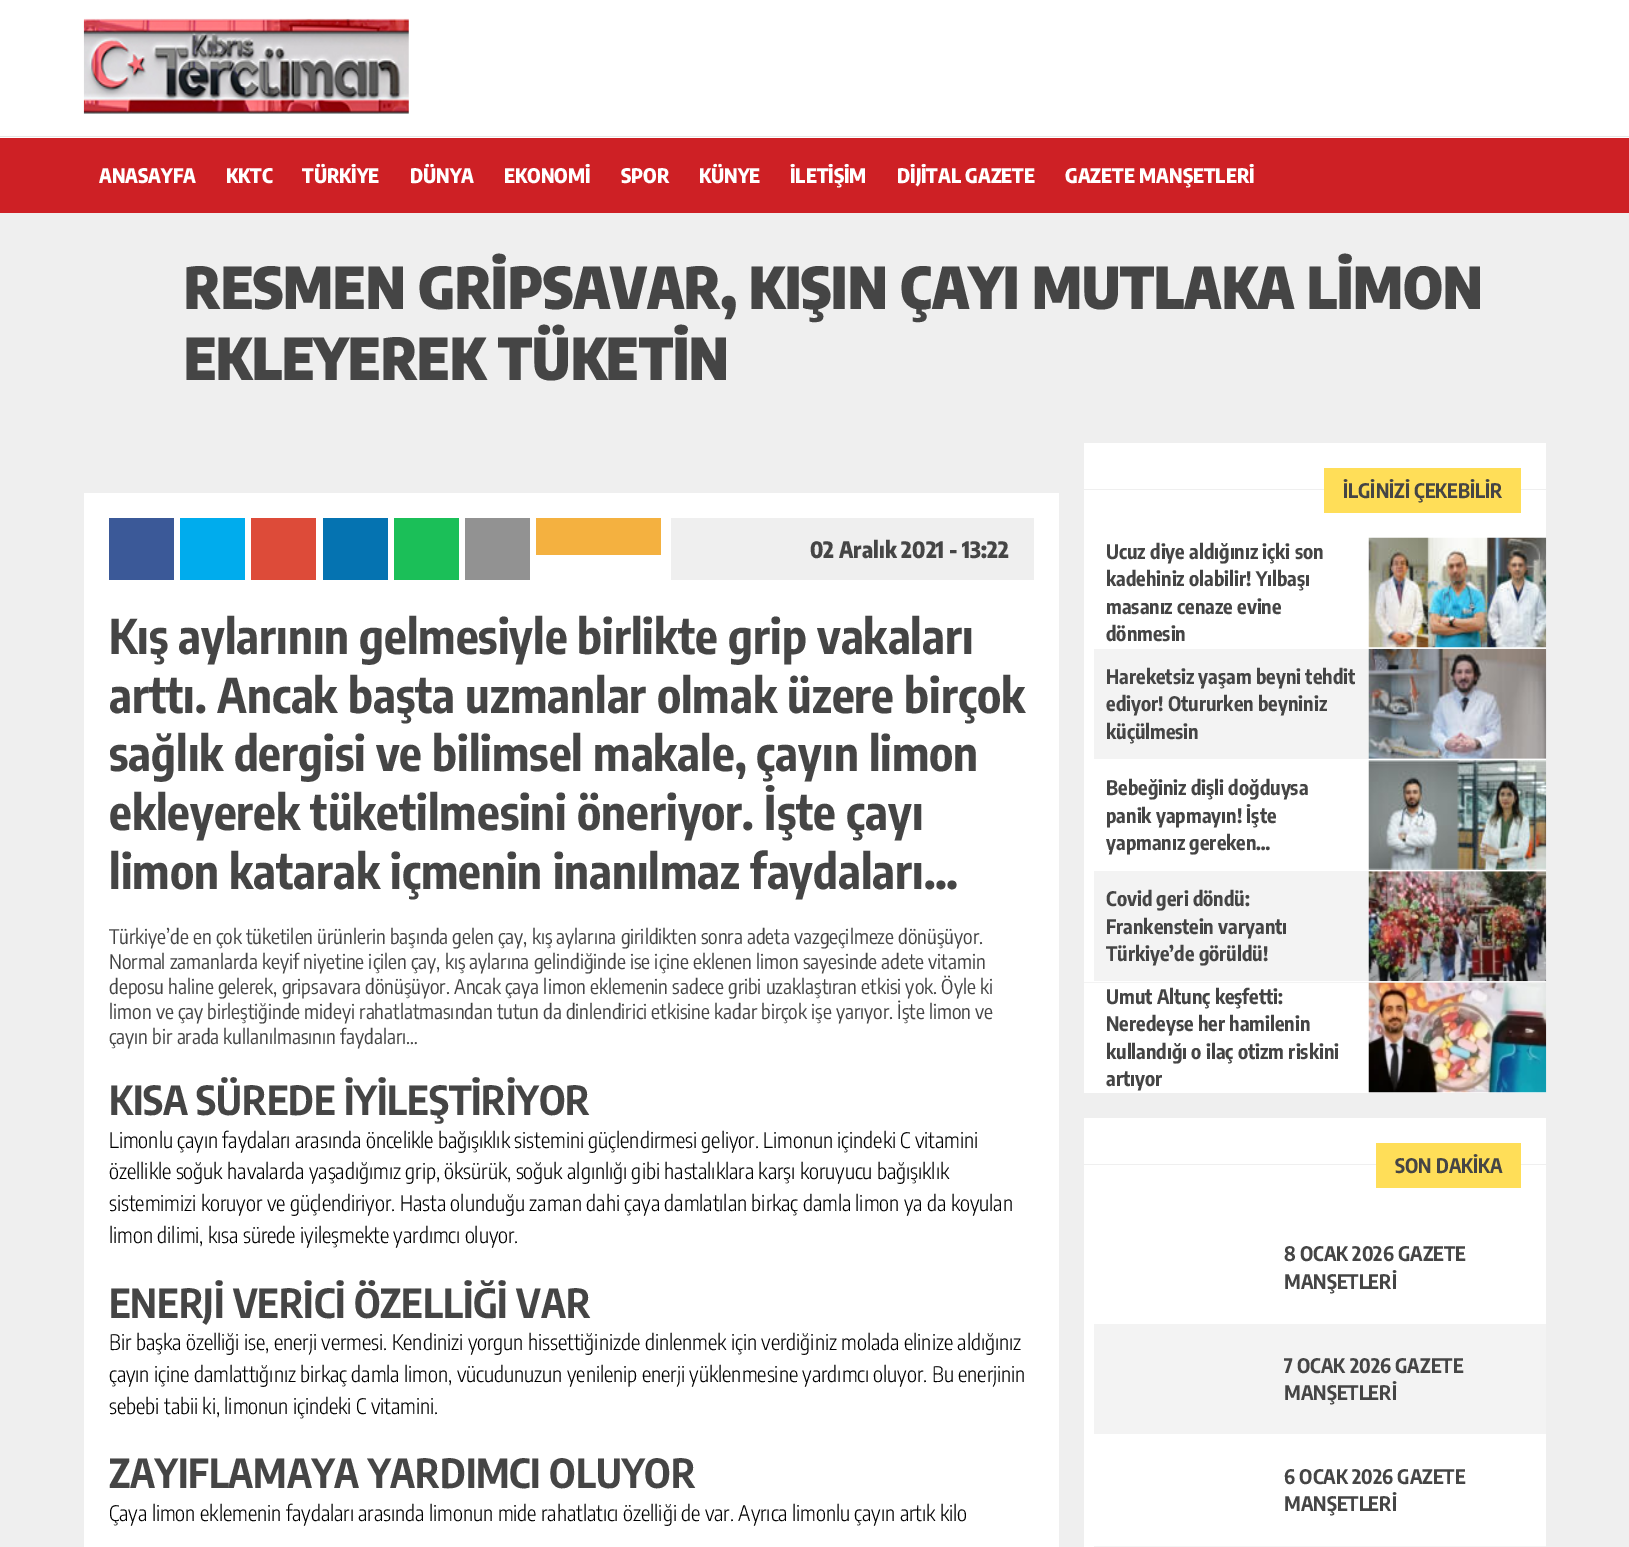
%!PS
<< /PageSize [1629 1547] >> setpagedevice
/rgb { 3 { 255 div 3 1 roll } repeat setrgbcolor } def
/font { [ exch dup neg 0 0 3 -1 roll 0 0 ] selectfont } def
/picture { 5 dict begin { /h /w /y /x /name } { exch def } forall
  gsave x y translate w h scale
  w h 8 [w 0 0 h 0 0] name (r) file false 3 colorimage grestore end } def
0 1547 translate 1 -1 scale
4 setmiterlimit
239 239 239 rgb
0 0 1629 1547 rectfill
255 255 255 rgb
0 0 1629 138 rectfill
230 230 230 rgb
0 136 1629 1 rectfill
(img/1.rgb) 83 18 326 96 picture
[
  [0 138 1629 75 206 32 37]
  [84 493 975 1054 255 255 255]
  [109 518 65 62 59 89 152]
  [180 518 65 62 0 172 237]
  [251 518 65 62 221 75 57]
  [323 518 65 62 5 115 177]
  [394 518 65 62 27 191 88]
  [465 518 65 62 146 146 146]
  [536 518 125 37 244 177 64]
  [671 518 363 62 239 239 239]
  [1084 443 462 650 255 255 255]
  [1084 489 462 1 239 239 239]
  [1324 468 197 45 255 222 88]
] { aload pop rgb rectfill } forall
(img/2.rgb) 1368 537 179 111 picture
243 243 243 rgb
1094 649 452 110 rectfill
(img/3.rgb) 1368 648 179 111 picture
(img/4.rgb) 1368 760 179 110 picture
[
  [1084 871 462 112 243 243 243]
  [1084 981 462 1 255 255 255]
  [1084 871 10 110 255 255 255]
] { aload pop rgb rectfill } forall
(img/5.rgb) 1368 871 179 111 picture
(img/6.rgb) 1368 982 179 111 picture
[
  [1084 1118 462 428 255 255 255]
  [1084 1164 462 1 239 239 239]
  [1376 1143 145 45 255 222 88]
  [1094 1324 452 110 243 243 243]
  [1094 1546 452 1 243 243 243]
  [1084 1546 10 1 255 255 255]
] { aload pop rgb rectfill } forall
/EncodeSansCondensed-ExtraBold 20 font
[
  [(ANASAYFA) 99 183]
  [(KKTC) 226 183]
  [(TÜRKİYE) 302 183]
  [(DÜNYA) 410 183]
  [(EKONOMİ) 504 183]
  [(SPOR) 621 183]
  [(KÜNYE) 699 183]
  [(İLETİŞİM) 790 183]
  [(DİJİTAL GAZETE) 897 183]
  [(GAZETE MANŞETLERİ) 1065 183]
] { aload pop moveto show } forall
/EncodeSansCondensed-Black 57.5 font
69 69 69 rgb
184 309 moveto (RESMEN GRİPSAVAR, KIŞIN ÇAYI MUTLAKA LİMON) show
184 380 moveto (EKLEYEREK TÜKETİN) show
/EncodeSansCondensed-ExtraBold 22.5 font
810 558 moveto (02 Aralık 2021 - 13:22) show
/EncodeSansCondensed-Bold 47.5 font
[
  [(Kış aylarının gelmesiyle birlikte grip vakaları) 109 654]
  [(arttı. Ancak başta uzmanlar olmak üzere birçok) 109 713]
  [(sağlık dergisi ve bilimsel makale, çayın limon) 109 771]
  [(ekleyerek tüketilmesini öneriyor. İşte çayı) 109 830]
  [(limon katarak içmenin inanılmaz faydaları…) 109 889]
] { aload pop moveto show } forall
/EncodeSansCondensed-Regular 20 font
[
  [(Türkiye’de en çok tüketilen ürünlerin başında gelen çay, kış aylarına girildikten sonra adeta vazgeçilmeze dönüşüyor.) 109 944]
  [(Normal zamanlarda keyif niyetine içilen çay, kış aylarına gelindiğinde ise içine eklenen limon sayesinde adete vitamin) 109 969]
  [(deposu haline gelerek, gripsavara dönüşüyor. Ancak çaya limon eklemenin sadece gribi uzaklaştıran etkisi yok. Öyle ki) 109 994]
  [(limon ve çay birleştiğinde mideyi rahatlatmasından tutun da dinlendirici etkisine kadar birçok işe yarıyor. İşte limon ve) 109 1019]
  [(çayın bir arada kullanılmasının faydaları…) 109 1044]
] { aload pop moveto show } forall
/EncodeSansCondensed-Bold 40 font
109 1115 moveto (KISA SÜREDE İYİLEŞTİRİYOR) show
/EncodeSansCondensed-Light 21.25 font
0 0 0 rgb
[
  [(Limonlu çayın faydaları arasında öncelikle bağışıklık sistemini güçlendirmesi geliyor. Limonun içindeki C vitamini) 109 1148]
  [(özellikle soğuk havalarda yaşadığımız grip, öksürük, soğuk algınlığı gibi hastalıklara karşı koruyucu bağışıklık) 109 1179]
  [(sistemimizi koruyor ve güçlendiriyor. Hasta olunduğu zaman dahi çaya damlatılan birkaç damla limon ya da koyulan) 109 1211]
  [(limon dilimi, kısa sürede iyileşmekte yardımcı oluyor.) 109 1243]
] { aload pop moveto show } forall
/EncodeSansCondensed-Bold 40 font
69 69 69 rgb
109 1318 moveto (ENERJİ VERİCİ ÖZELLİĞİ VAR) show
/EncodeSansCondensed-Light 21.25 font
0 0 0 rgb
[
  [(Bir başka özelliği ise, enerji vermesi. Kendinizi yorgun hissettiğinizde dinlenmek için verdiğiniz molada elinize aldığınız) 109 1350]
  [(çayın içine damlattığınız birkaç damla limon, vücudunuzun yenilenip enerji yüklenmesine yardımcı oluyor. Bu enerjinin) 109 1382]
  [(sebebi tabii ki, limonun içindeki C vitamini.) 109 1414]
] { aload pop moveto show } forall
/EncodeSansCondensed-Bold 40 font
69 69 69 rgb
109 1488 moveto (ZAYIFLAMAYA YARDIMCI OLUYOR) show
/EncodeSansCondensed-Light 21.25 font
0 0 0 rgb
109 1521 moveto (Çaya limon eklemenin faydaları arasında limonun mide rahatlatıcı özelliği de var. Ayrıca limonlu çayın artık kilo) show
/EncodeSansCondensed-Bold 20 font
69 69 69 rgb
[
  [(İLGİNİZİ ÇEKEBİLİR) 1343 498]
  [(Ucuz diye aldığınız içki son) 1106 559]
  [(kadehiniz olabilir! Yılbaşı) 1106 586]
  [(masanız cenaze evine) 1106 614]
  [(dönmesin) 1106 641]
  [(Hareketsiz yaşam beyni tehdit) 1106 684]
  [(ediyor! Otururken beyniniz) 1106 711]
  [(küçülmesin) 1106 739]
  [(Bebeğiniz dişli doğduysa) 1106 795]
  [(panik yapmayın! İşte) 1106 823]
  [(yapmanız gereken…) 1106 850]
  [(Covid geri döndü:) 1106 906]
  [(Frankenstein varyantı) 1106 934]
  [(Türkiye’de görüldü!) 1106 961]
  [(Umut Altunç keşfetti:) 1106 1004]
  [(Neredeyse her hamilenin) 1106 1031]
  [(kullandığı o ilaç otizm riskini) 1106 1059]
  [(artıyor) 1106 1086]
  [(SON DAKİKA) 1395 1173]
  [(8 OCAK 2026 GAZETE) 1284 1261]
  [(MANŞETLERİ) 1284 1289]
  [(7 OCAK 2026 GAZETE) 1284 1373]
  [(MANŞETLERİ) 1284 1400]
  [(6 OCAK 2026 GAZETE) 1284 1484]
  [(MANŞETLERİ) 1284 1511]
] { aload pop moveto show } forall
showpage
